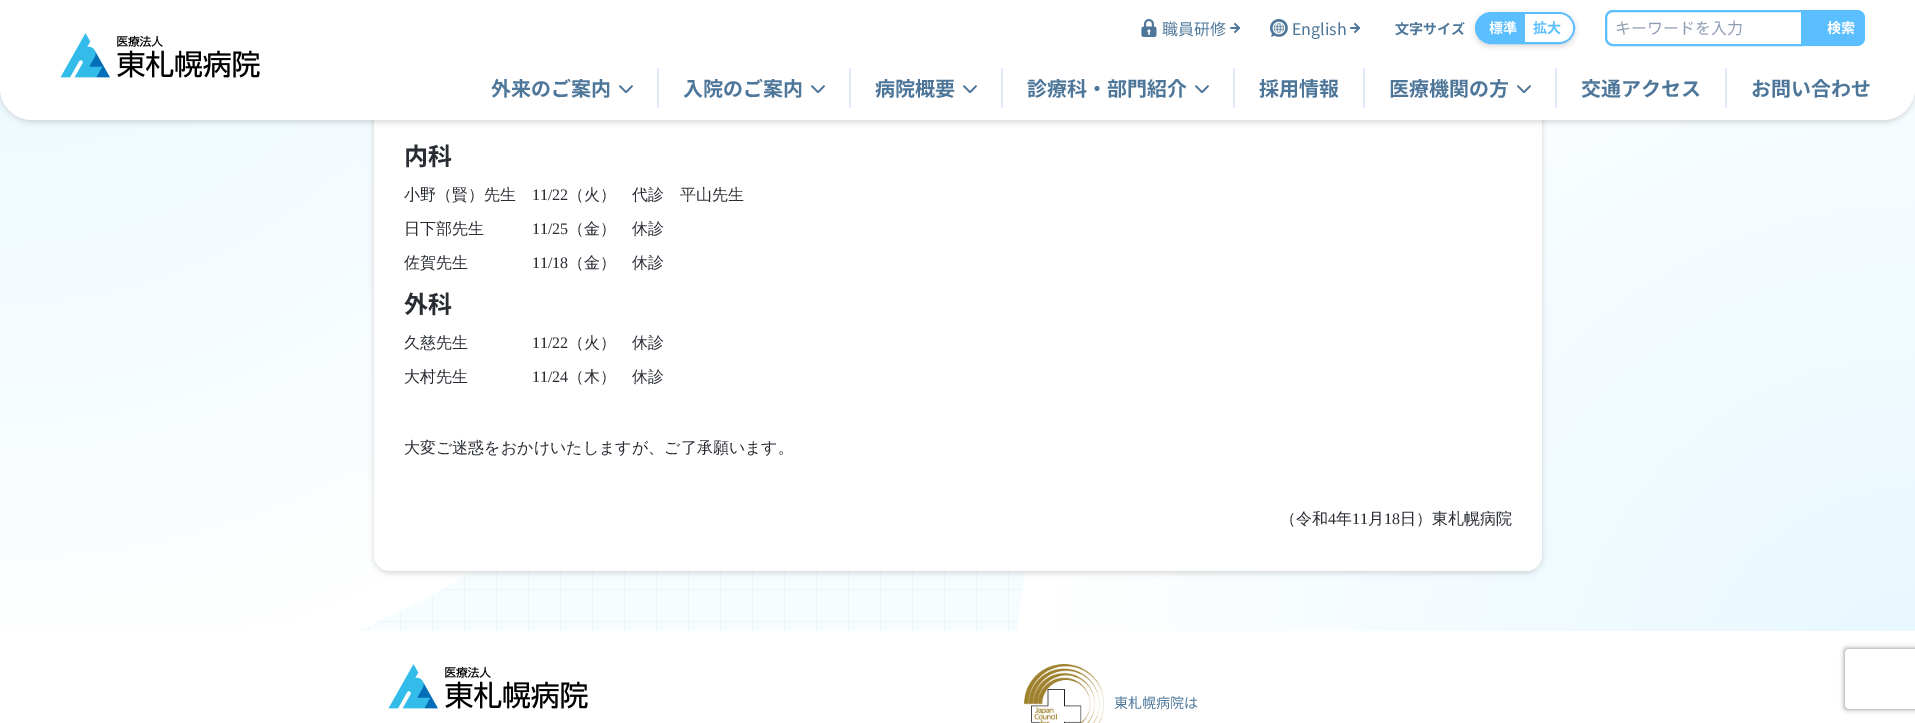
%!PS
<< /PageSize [1915 723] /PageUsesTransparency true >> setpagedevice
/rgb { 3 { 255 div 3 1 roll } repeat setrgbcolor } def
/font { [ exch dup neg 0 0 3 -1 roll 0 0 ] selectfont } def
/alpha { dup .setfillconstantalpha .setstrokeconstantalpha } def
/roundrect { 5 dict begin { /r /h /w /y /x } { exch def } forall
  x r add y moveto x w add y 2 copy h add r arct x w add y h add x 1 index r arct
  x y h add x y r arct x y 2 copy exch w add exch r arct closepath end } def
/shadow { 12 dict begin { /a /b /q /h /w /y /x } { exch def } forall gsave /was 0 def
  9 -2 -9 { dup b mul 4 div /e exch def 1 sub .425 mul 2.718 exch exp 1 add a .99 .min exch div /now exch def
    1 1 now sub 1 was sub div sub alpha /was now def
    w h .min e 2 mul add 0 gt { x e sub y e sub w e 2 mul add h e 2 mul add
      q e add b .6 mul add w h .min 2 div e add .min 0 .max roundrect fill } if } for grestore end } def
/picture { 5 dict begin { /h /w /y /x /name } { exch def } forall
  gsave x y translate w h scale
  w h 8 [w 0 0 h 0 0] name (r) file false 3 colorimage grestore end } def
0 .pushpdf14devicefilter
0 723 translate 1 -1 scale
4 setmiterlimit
255 255 255 rgb
0 0 1915 723 rectfill
247 253 255 rgb
357 571 669 60 rectfill
(img/6.rgb) 368 571 655 60 picture
(img/7.rgb) 0 88 473 543 picture
(img/8.rgb) 1018 88 897 543 picture
0 0 0 rgb
374 -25 1168 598 16 3 0.16 shadow
255 255 255 rgb
374 -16 1168 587 16 roundrect fill
0 0 0 rgb
0 2 1915 120 32 3 0.16 shadow
255 255 255 rgb
0 0 moveto 1915 0 lineto 1915 88 lineto 1915 105.5 1900.5 120 1883 120 curveto 32 120 lineto 14.5 120 0 105.5 0 88 curveto closepath fill
(img/1.rgb) 60 33 200 45 picture
(img/2.rgb) 1141 19 16 18 picture
(img/3.rgb) 1230 23 10 10 picture
(img/4.rgb) 1270 19 18 18 picture
(img/3.rgb) 1350 23 10 10 picture
0 0 0 rgb
1475 14 100 32 16 3 0.16 shadow
91 190 255 rgb
1476 13 98 30 15 roundrect gsave fill grestore
2 setlinewidth
stroke
255 255 255 rgb
1525 14 moveto 1559 14 lineto 1566.5 14 1573 20.5 1573 28 curveto 1573 35.5 1566.5 42 1559 42 curveto 1525 42 lineto closepath fill
91 190 255 rgb
1613 11 moveto 1802 11 lineto 1802 45 lineto 1613 45 lineto 1609 45 1606 42 1606 38 curveto 1606 18 lineto 1606 14 1609 11 1613 11 curveto closepath stroke
1803 10 moveto 1857 10 lineto 1861.5 10 1865 13.5 1865 18 curveto 1865 38 lineto 1865 42.5 1861.5 46 1857 46 curveto 1803 46 lineto closepath fill
(img/5.rgb) 619 85 14 8 picture
223 233 247 rgb
657 68 2 40 1 roundrect fill
(img/5.rgb) 811 85 14 8 picture
849 68 2 40 1 roundrect fill
(img/5.rgb) 963 85 14 8 picture
1001 68 2 40 1 roundrect fill
(img/5.rgb) 1195 85 14 8 picture
1233 68 2 40 1 roundrect fill
1363 68 2 40 1 roundrect fill
(img/5.rgb) 1517 85 14 8 picture
1555 68 2 40 1 roundrect fill
1725 68 2 40 1 roundrect fill
(img/1.rgb) 388 664 200 45 picture
(img/9.rgb) 1024 664 80 59 picture
gsave
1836 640 moveto 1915 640 lineto 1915 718 lineto 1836 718 lineto closepath 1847 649 moveto 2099 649 lineto 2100 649 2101 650 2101 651 curveto 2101 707 lineto 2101 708 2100 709 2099 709 curveto 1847 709 lineto 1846 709 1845 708 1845 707 curveto 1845 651 lineto 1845 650 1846 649 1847 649 curveto closepath eoclip newpath
128 128 128 rgb
1845 649 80 60 2 2.5 1 shadow
grestore
/NotoSansJP-Regular 16 font
77 118 153 rgb
1162 35 moveto (職員研修) show
1292 35 moveto (English) show
/NotoSansJP-Bold 14 font
1395 34 moveto (文字サイズ) show
255 255 255 rgb
1489 33 moveto (標準) show
91 190 255 rgb
1533 33 moveto (拡大) show
/NotoSansJP-Regular 16 font
143 157 179 rgb
1615 34 moveto (キーワードを入力) show
/NotoSansJP-Bold 14 font
255 255 255 rgb
1827 33 moveto (検索) show
/NotoSansJP-Bold 20 font
77 118 153 rgb
[
  [(外来のご案内) 491 96]
  [(入院のご案内) 683 96]
  [(病院概要) 875 96]
  [(診療科・部門紹介) 1027 96]
  [(採用情報) 1259 96]
  [(医療機関の方) 1389 96]
  [(交通アクセス) 1581 96]
  [(お問い合わせ) 1751 96]
] { aload pop moveto show } forall
/NotoSansJP-Bold 24 font
41 45 51 rgb
404 165 moveto (内科) show
/WenQuanYiZenHei-Medium 16 font
404 200 moveto (小野（賢）先生) show
/LiberationSerif-Regular 16 font
532 200 moveto (11/22) show
/WenQuanYiZenHei-Medium 16 font
568 200 moveto (（火）　代診　平山先生) show
404 234 moveto (日下部先生) show
/LiberationSerif-Regular 16 font
532 234 moveto (11/25) show
/WenQuanYiZenHei-Medium 16 font
568 234 moveto (（金）　休診) show
404 268 moveto (佐賀先生) show
/LiberationSerif-Regular 16 font
532 268 moveto (11/18) show
/WenQuanYiZenHei-Medium 16 font
568 268 moveto (（金）　休診) show
/NotoSansJP-Bold 24 font
404 313 moveto (外科) show
/WenQuanYiZenHei-Medium 16 font
404 348 moveto (久慈先生) show
/LiberationSerif-Regular 16 font
532 348 moveto (11/22) show
/WenQuanYiZenHei-Medium 16 font
568 348 moveto (（火）　休診) show
404 382 moveto (大村先生) show
/LiberationSerif-Regular 16 font
532 382 moveto (11/24) show
/WenQuanYiZenHei-Medium 16 font
[
  [(（木）　休診) 568 382]
  [(大変ご迷惑をおかけいたしますが、ご了承願います。) 404 453]
  [(（令和) 1280 524]
] { aload pop moveto show } forall
/LiberationSerif-Regular 16 font
1328 524 moveto (4) show
/WenQuanYiZenHei-Medium 16 font
1336 524 moveto (年) show
/LiberationSerif-Regular 16 font
1352 524 moveto (11) show
/WenQuanYiZenHei-Medium 16 font
1368 524 moveto (月) show
/LiberationSerif-Regular 16 font
1384 524 moveto (18) show
/WenQuanYiZenHei-Medium 16 font
1400 524 moveto (日）東札幌病院) show
/NotoSansJP-Regular 14 font
77 118 153 rgb
1114 708 moveto (東札幌病院は) show
.poppdf14devicefilter showpage
